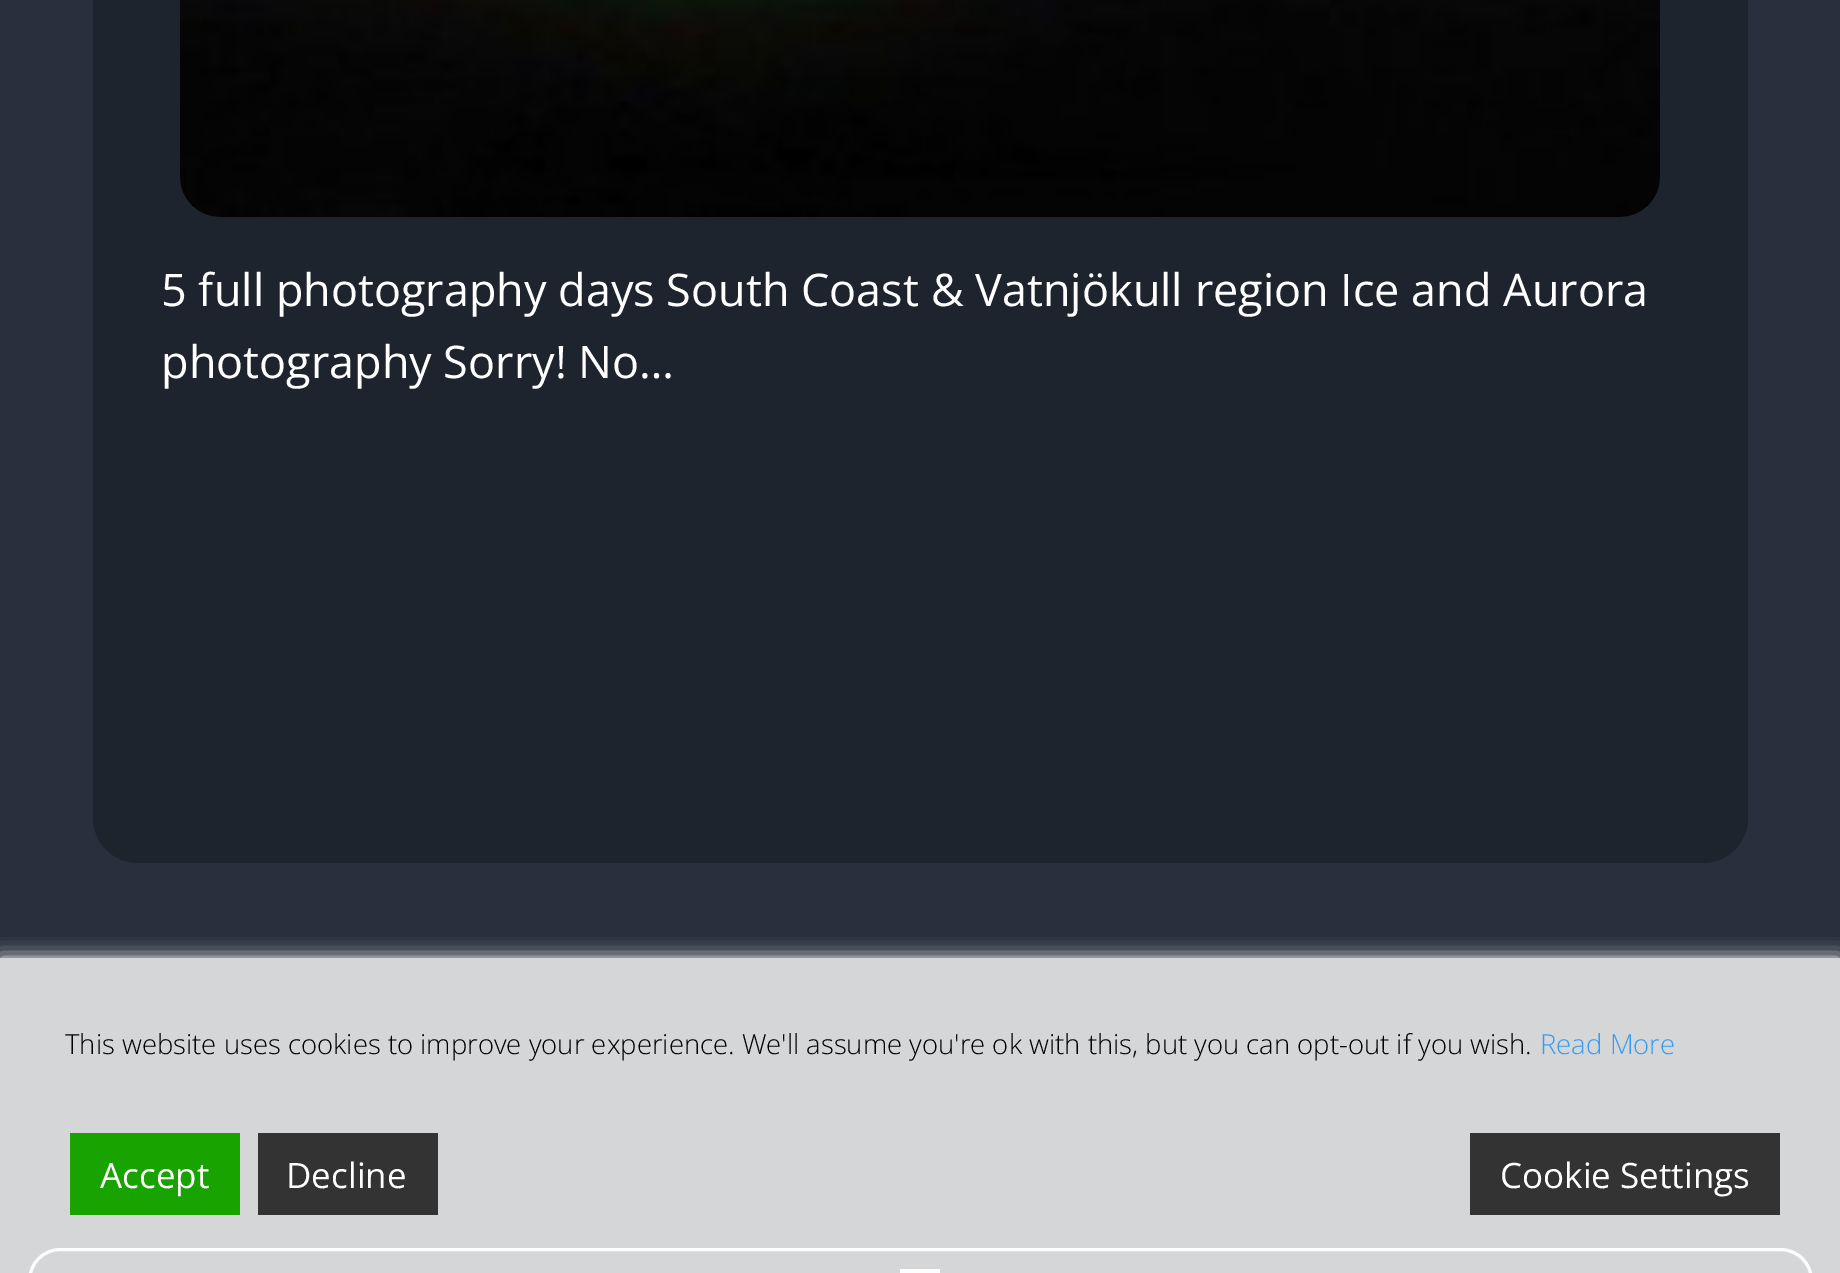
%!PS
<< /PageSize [1840 1273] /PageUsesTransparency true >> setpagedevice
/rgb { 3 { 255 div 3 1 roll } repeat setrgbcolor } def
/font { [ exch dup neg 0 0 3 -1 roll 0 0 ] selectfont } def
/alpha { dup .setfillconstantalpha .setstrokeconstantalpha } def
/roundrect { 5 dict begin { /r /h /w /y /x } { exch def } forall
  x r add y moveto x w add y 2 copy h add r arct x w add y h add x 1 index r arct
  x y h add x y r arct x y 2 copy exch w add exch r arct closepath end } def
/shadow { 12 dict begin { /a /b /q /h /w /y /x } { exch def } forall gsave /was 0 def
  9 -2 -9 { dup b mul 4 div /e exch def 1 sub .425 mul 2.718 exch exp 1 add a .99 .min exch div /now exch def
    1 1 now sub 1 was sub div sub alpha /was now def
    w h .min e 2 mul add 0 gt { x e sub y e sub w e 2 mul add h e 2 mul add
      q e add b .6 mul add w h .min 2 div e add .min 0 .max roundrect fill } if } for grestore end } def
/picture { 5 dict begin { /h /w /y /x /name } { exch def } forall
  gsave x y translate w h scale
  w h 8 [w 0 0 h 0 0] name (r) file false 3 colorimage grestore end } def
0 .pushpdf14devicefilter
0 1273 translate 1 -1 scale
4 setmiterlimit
40 48 61 rgb
0 0 1840 1273 rectfill
212 214 216 rgb
0 958 1840 315 rectfill
30 36 45 rgb
93 -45 1655 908 45 roundrect fill
(img/1.rgb) 180 0 1480 217 picture
253 253 253 rgb
3 setlinewidth
29.5 1249.5 1782 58 31 roundrect stroke
900 1269 40 4 rectfill
gsave
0 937 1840 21 rectclip
255 255 255 rgb
0 958 1840 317 0 10 1 shadow
grestore
[
  [70 1133 170 82 24 163 0]
  [258 1133 180 82 51 51 51]
  [1470 1133 310 82 51 51 51]
] { aload pop rgb rectfill } forall
/OpenSans-Regular 45 font
255 255 255 rgb
161 306 moveto (5 full photography days South Coast & Vatnjökull region Ice and Aurora) show
161 378 moveto (photography Sorry! No…) show
/OpenSans-Light 27.5 font
0 0 0 rgb
65 1054 moveto (This website uses cookies to improve your experience. We'll assume you're ok with this, but you can opt-out if you wish.) show
53 155 245 rgb
1540 1054 moveto (Read More) show
/OpenSans-Regular 35 font
255 255 255 rgb
[
  [(Accept) 100 1188]
  [(Decline) 286 1188]
  [(Cookie Settings) 1500 1188]
] { aload pop moveto show } forall
.poppdf14devicefilter showpage
